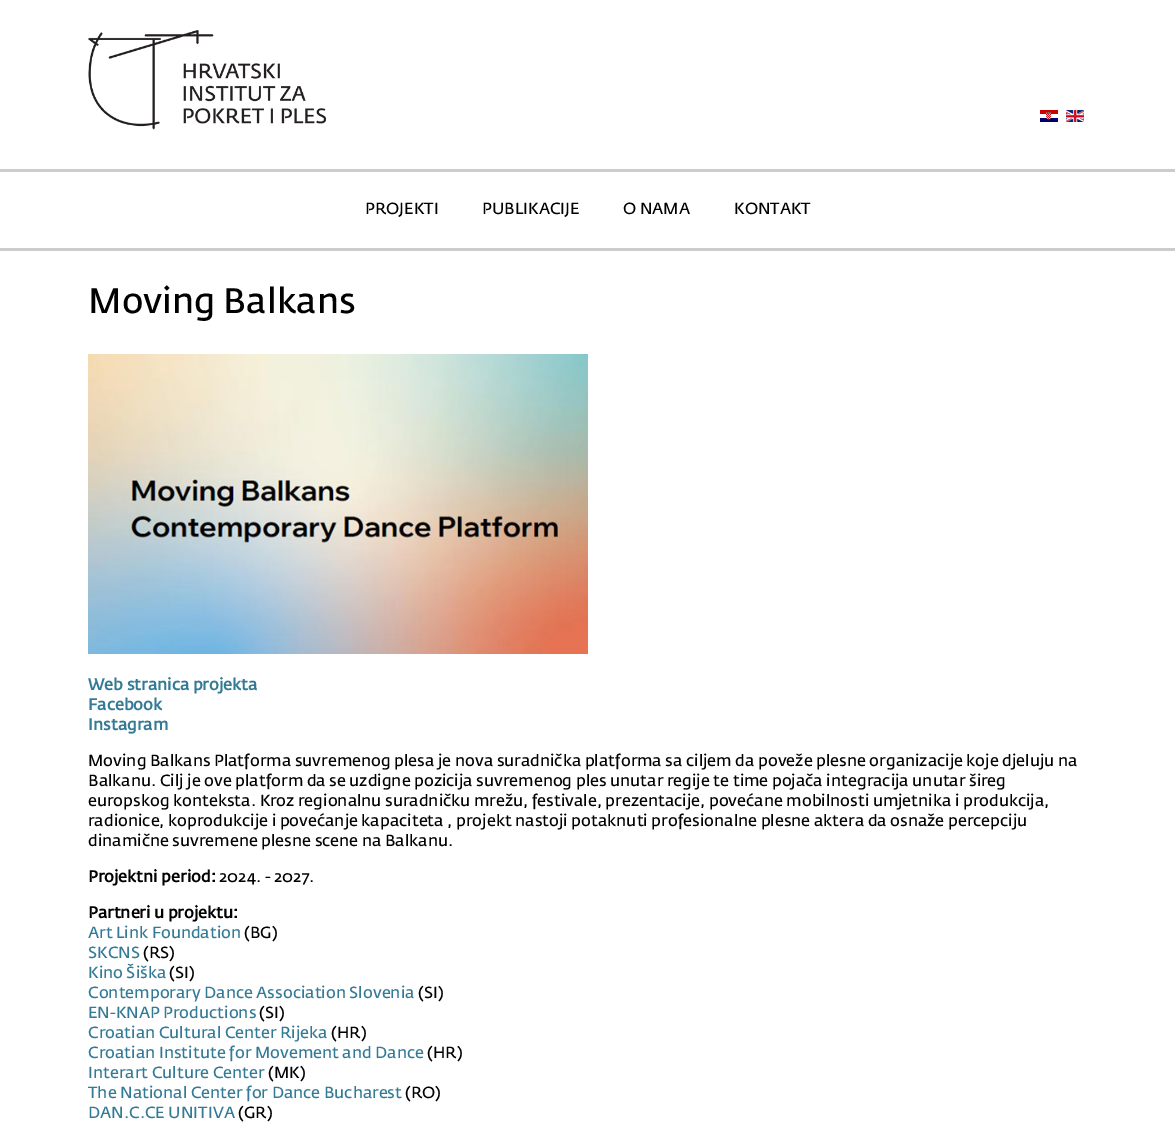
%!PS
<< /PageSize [1175 1133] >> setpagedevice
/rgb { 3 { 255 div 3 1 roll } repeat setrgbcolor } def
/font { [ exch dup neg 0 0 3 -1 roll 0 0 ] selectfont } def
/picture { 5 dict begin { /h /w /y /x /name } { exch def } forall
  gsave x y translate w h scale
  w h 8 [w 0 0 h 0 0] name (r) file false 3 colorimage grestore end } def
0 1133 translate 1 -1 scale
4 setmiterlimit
255 255 255 rgb
0 0 1175 1133 rectfill
(img/1.rgb) 88 30 238 100 picture
(img/2.rgb) 1040 110 18 12 picture
(img/3.rgb) 1066 110 18 12 picture
204 204 204 rgb
0 169 1175 3 rectfill
0 248 1175 3 rectfill
(img/4.rgb) 88 354 500 300 picture
/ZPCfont-Regular 16 font
0 0 0 rgb
[
  [(PROJEKTI) 365 214]
  [(PUBLIKACIJE) 482 214]
  [(O NAMA) 623 214]
  [(KONTAKT) 734 214]
] { aload pop moveto show } forall
/ZPCfont-Regular 35 font
88 313 moveto (Moving Balkans) show
/ZPCfont-Bold 16 font
50 122 149 rgb
[
  [(Web stranica projekta) 88 690]
  [(Facebook) 88 710]
  [(Instagram) 88 730]
] { aload pop moveto show } forall
/ZPCfont-Regular 16 font
0 0 0 rgb
[
  [(Moving Balkans Platforma suvremenog plesa je nova suradnička platforma sa ciljem da poveže plesne organizacije koje djeluju na) 88 766]
  [(Balkanu. Cilj je ove platform da se uzdigne pozicija suvremenog ples unutar regije te time pojača integracija unutar šireg) 88 786]
  [(europskog konteksta. Kroz regionalnu suradničku mrežu, festivale, prezentacije, povećane mobilnosti umjetnika i produkcija,) 88 806]
  [(radionice, koprodukcije i povećanje kapaciteta , projekt nastoji potaknuti profesionalne plesne aktera da osnaže percepciju) 88 826]
  [(dinamične suvremene plesne scene na Balkanu.) 88 846]
] { aload pop moveto show } forall
/ZPCfont-Bold 16 font
88 882 moveto (Projektni period:) show
/ZPCfont-Regular 16 font
219 882 moveto (2024. - 2027.) show
/ZPCfont-Bold 16 font
88 918 moveto (Partneri u projektu:) show
/ZPCfont-Regular 16 font
50 122 149 rgb
88 938 moveto (Art Link Foundation) show
0 0 0 rgb
244 938 moveto (\(BG\)) show
50 122 149 rgb
88 958 moveto (SKCNS) show
0 0 0 rgb
143 958 moveto (\(RS\)) show
50 122 149 rgb
88 978 moveto (Kino Šiška) show
0 0 0 rgb
169 978 moveto (\(SI\)) show
50 122 149 rgb
88 998 moveto (Contemporary Dance Association Slovenia) show
0 0 0 rgb
418 998 moveto (\(SI\)) show
50 122 149 rgb
88 1018 moveto (EN-KNAP Productions) show
0 0 0 rgb
259 1018 moveto (\(SI\)) show
50 122 149 rgb
88 1038 moveto (Croatian Cultural Center Rijeka) show
0 0 0 rgb
331 1038 moveto (\(HR\)) show
50 122 149 rgb
88 1058 moveto (Croatian Institute for Movement and Dance) show
0 0 0 rgb
427 1058 moveto (\(HR\)) show
50 122 149 rgb
88 1078 moveto (Interart Culture Center) show
0 0 0 rgb
268 1078 moveto (\(MK\)) show
50 122 149 rgb
88 1098 moveto (The National Center for Dance Bucharest) show
0 0 0 rgb
405 1098 moveto (\(RO\)) show
50 122 149 rgb
88 1118 moveto (DAN.C.CE UNITIVA) show
0 0 0 rgb
238 1118 moveto (\(GR\)) show
showpage
